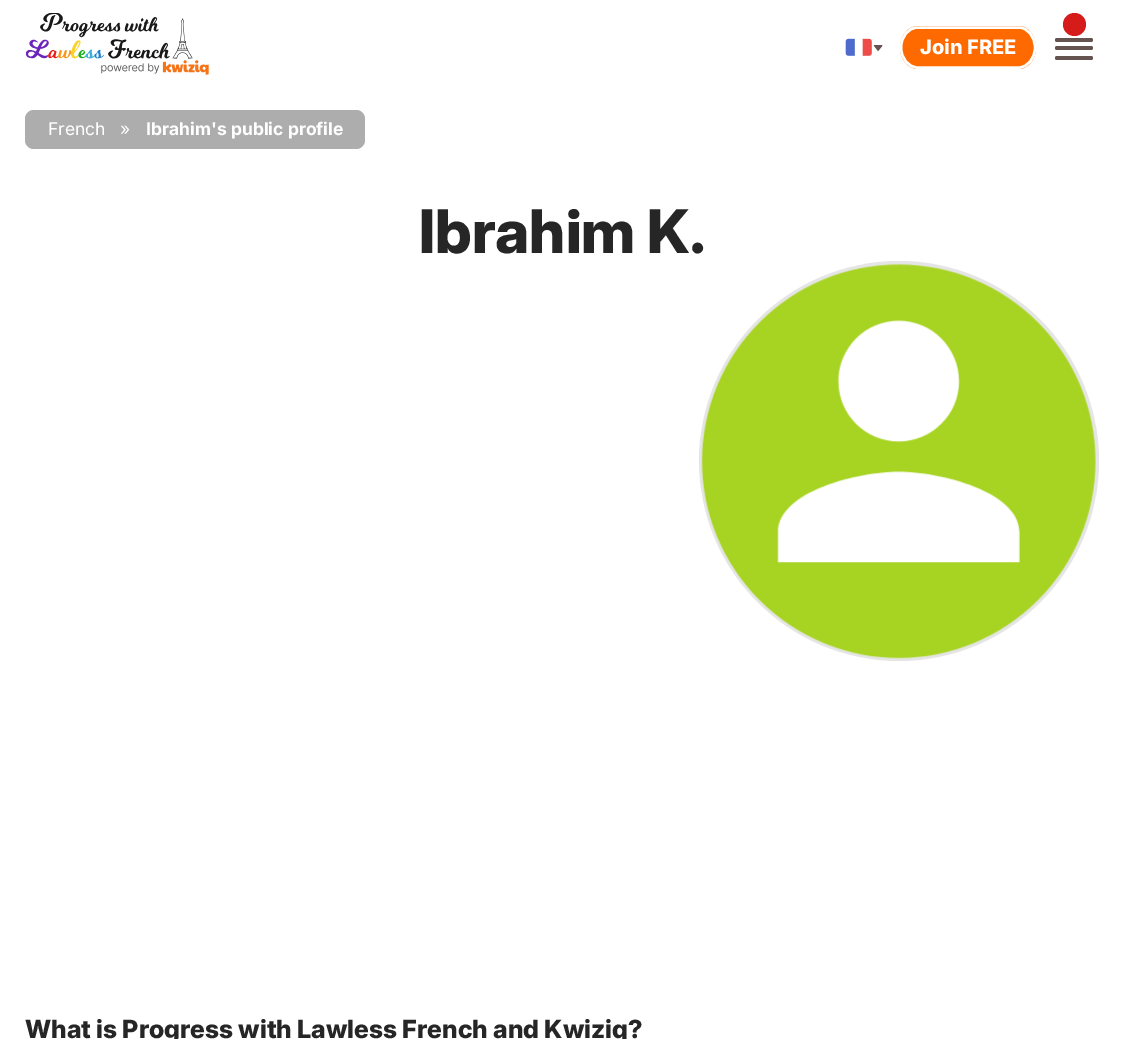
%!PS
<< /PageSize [1123 1039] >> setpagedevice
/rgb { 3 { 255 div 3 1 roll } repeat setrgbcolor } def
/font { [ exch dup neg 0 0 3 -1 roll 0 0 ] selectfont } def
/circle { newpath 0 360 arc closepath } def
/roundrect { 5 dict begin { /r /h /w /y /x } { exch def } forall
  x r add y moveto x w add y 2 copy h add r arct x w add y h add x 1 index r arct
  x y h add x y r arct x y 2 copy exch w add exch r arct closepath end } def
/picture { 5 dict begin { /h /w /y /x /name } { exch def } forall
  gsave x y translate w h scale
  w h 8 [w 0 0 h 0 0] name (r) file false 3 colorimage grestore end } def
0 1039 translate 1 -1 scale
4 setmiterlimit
255 255 255 rgb
0 0 1123 1039 rectfill
(img/1.rgb) 25 13 184 62 picture
(img/2.rgb) 845 38 27 18 picture
(img/3.rgb) 873 45 10 6 picture
255 106 0 rgb
918 26 moveto 1019 26 lineto 1028 26 1036 36 1036 48 curveto 1036 59 1028 69 1019 69 curveto 918 69 lineto 908 69 900 59 900 48 curveto 900 36 908 26 918 26 curveto closepath fill
255 255 255 rgb
2.5 setlinewidth
917.5 27.5 moveto 1019 27.5 lineto 1027.5 27.5 1035 36.5 1035 47.5 curveto 1035 58.5 1027.5 67.5 1019 67.5 curveto 917.5 67.5 lineto 908.5 67.5 901 58.5 901 47.5 curveto 901 36.5 908.5 27.5 917.5 27.5 curveto closepath stroke
213 28 27 rgb
1074.5 24.5 11.5 circle fill
100 83 78 rgb
1055 38 38 4 2 roundrect fill
1055 46 38 4 2 roundrect fill
1055 56 38 4 2 roundrect fill
173 173 173 rgb
25 110 340 39 9 roundrect fill
229 229 229 rgb
899 461 200 circle fill
(img/4.rgb) 701 264 395 395 picture
/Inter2-ExtraBold 20 font
255 255 255 rgb
920 54 moveto (Join FREE) show
/Inter-Regular 17.5 font
48 135 moveto (French) show
120 135 moveto (») show
/Inter-Bold 17.5 font
146 135 moveto (Ibrahim's public profile) show
/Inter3-ExtraBold 60 font
38 38 38 rgb
419 253 moveto (Ibrahim K.) show
/Inter-ExtraBold 25 font
25 1038 moveto (What is Progress with Lawless French and Kwiziq?) show
showpage
